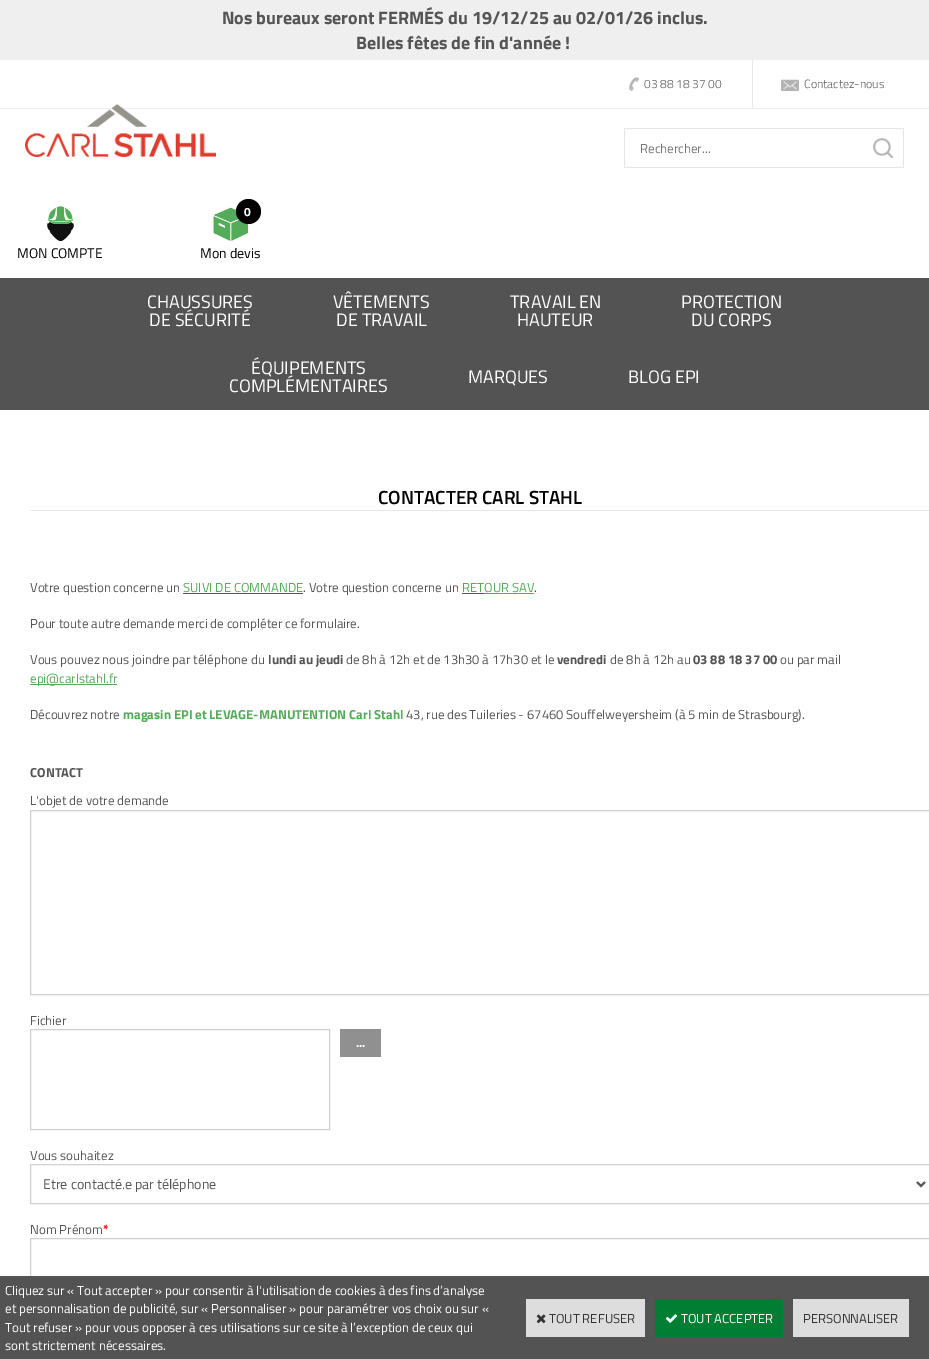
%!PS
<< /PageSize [929 1359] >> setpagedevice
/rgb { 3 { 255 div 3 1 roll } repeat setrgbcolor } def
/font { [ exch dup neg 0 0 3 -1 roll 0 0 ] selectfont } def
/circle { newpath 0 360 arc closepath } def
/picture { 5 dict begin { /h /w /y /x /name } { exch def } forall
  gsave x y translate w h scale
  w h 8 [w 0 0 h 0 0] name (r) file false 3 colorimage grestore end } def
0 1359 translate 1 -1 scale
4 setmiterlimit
255 255 255 rgb
0 0 929 1359 rectfill
239 239 239 rgb
0 0 929 60 rectfill
237 237 237 rgb
0 108 929 1 rectfill
(img/1.rgb) 629 77 10 14 picture
(img/2.rgb) 781 79 18 12 picture
232 232 232 rgb
752 60 1 48 rectfill
(img/3.rgb) 25 104 191 53 picture
[
  [624 128 280 1 230 230 230]
  [624 167 239 1 230 230 230]
  [624 128 1 40 230 230 230]
] { aload pop rgb rectfill } forall
(img/4.rgb) 873 138 20 20 picture
903 128 1 40 rectfill
863 167 41 1 rectfill
(img/5.rgb) 47 206 27 35 picture
(img/6.rgb) 213 207 35 34 picture
0 0 0 rgb
248.5 211.5 12.5 circle fill
[
  [0 278 929 132 83 83 83]
  [30 510 899 1 232 232 232]
  [183 593 120 1 85 85 85]
  [462 593 22 1 85 85 85]
  [484 593 50 1 84 171 89]
  [30 684 87 1 84 171 89]
] { aload pop rgb rectfill } forall
208 208 208 rgb
30.5 810.5 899 184 rectstroke
30.5 1029.5 299 100 rectstroke
144 144 144 rgb
340 1029 41 28 rectfill
208 208 208 rgb
30.5 1164.5 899 39 rectstroke
85 85 85 rgb
2 setlinewidth
917 1182 moveto 921 1186 lineto 925 1182 lineto stroke
208 208 208 rgb
1 setlinewidth
30.5 1238.5 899 39 rectstroke
83 83 83 rgb
0 1276 929 83 rectfill
221 221 221 rgb
526 1299 119 38 rectfill
(img/7.rgb) 536 1314 10 10 picture
0 126 51 rgb
655 1299 128 38 rectfill
(img/8.rgb) 665 1314 13 9 picture
221 221 221 rgb
793 1299 116 38 rectfill
/TitilliumWeb-Bold 18 font
85 85 85 rgb
222 24 moveto (Nos bureaux seront FERMÉS du 19/12/25 au 02/01/26 inclus.) show
356 49 moveto (Belles fêtes de fin d'année !) show
/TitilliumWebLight-Light 12 font
97 97 97 rgb
644 88 moveto (03 88 18 37 00) show
804 88 moveto (Contactez-nous) show
/TitilliumWeb-Regular 13 font
117 117 117 rgb
640 153 moveto (Rechercher...) show
/TitilliumWeb-Regular 14 font
0 0 0 rgb
17 258 moveto (MON COMPTE) show
/TitilliumWeb-Bold 12 font
255 255 255 rgb
244 216 moveto (0) show
/TitilliumWeb-Regular 14 font
0 0 0 rgb
200 258 moveto (Mon devis) show
/TitilliumWeb-Regular 18 font
255 255 255 rgb
[
  [(CHAUSSURES) 147 308]
  [(DE SÉCURITÉ) 149 326]
  [(VÊTEMENTS) 333 308]
  [(DE TRAVAIL) 336 326]
  [(TRAVAIL EN) 510 308]
  [(HAUTEUR) 517 326]
  [(PROTECTION) 681 308]
  [(DU CORPS) 691 326]
  [(ÉQUIPEMENTS) 251 374]
  [(COMPLÉMENTAIRES) 229 392]
  [(MARQUES) 468 383]
  [(BLOG EPI) 628 383]
] { aload pop moveto show } forall
/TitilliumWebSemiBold-SemiBold 19 font
0 0 0 rgb
378 504 moveto (CONTACTER CARL STAHL) show
/TitilliumWeb-Regular 13 font
85 85 85 rgb
30 592 moveto (Votre question concerne un) show
84 171 89 rgb
183 592 moveto (SUIVI DE COMMANDE) show
85 85 85 rgb
303 592 moveto (. Votre question concerne un) show
84 171 89 rgb
462 592 moveto (RETOUR SAV) show
85 85 85 rgb
[
  [(.) 534 592]
  [(Pour toute autre demande merci de compléter ce formulaire.) 30 628]
  [(Vous pouvez nous joindre par téléphone du) 30 664]
] { aload pop moveto show } forall
/TitilliumWeb-Bold 13 font
268 664 moveto (lundi au jeudi) show
/TitilliumWeb-Regular 13 font
346 664 moveto (de 8h à 12h et de 13h30 à 17h30 et le) show
/TitilliumWeb-Bold 13 font
557 664 moveto (vendredi) show
/TitilliumWeb-Regular 13 font
610 664 moveto (de 8h à 12h au) show
/TitilliumWeb-Bold 13 font
693 664 moveto (03 88 18 37 00) show
/TitilliumWeb-Regular 13 font
780 664 moveto (ou par mail) show
84 171 89 rgb
30 683 moveto (epi@carlstahl.fr) show
85 85 85 rgb
30 719 moveto (Découvrez notre) show
/TitilliumWeb-Bold 13 font
84 171 89 rgb
123 719 moveto (magasin EPI et LEVAGE-MANUTENTION Carl Stahl) show
/TitilliumWeb-Regular 13 font
85 85 85 rgb
406 719 moveto (43, rue des Tuileries - 67460 Souffelweyersheim \(à 5 min de Strasbourg\).) show
/TitilliumWeb-Bold 13 font
30 777 moveto (CONTACT) show
/TitilliumWeb-Regular 13 font
30 805 moveto (L'objet de votre demande) show
30 1025 moveto (Fichier) show
/TitilliumWeb-Bold 12 font
255 255 255 rgb
356 1047 moveto (...) show
/TitilliumWeb-Regular 13 font
85 85 85 rgb
30 1160 moveto (Vous souhaitez) show
/TitilliumWeb-Regular 14 font
43 1189 moveto (Etre contacté.e par téléphone) show
/TitilliumWeb-Regular 13 font
30 1234 moveto (Nom Prénom) show
/TitilliumWeb-Bold 13 font
255 0 0 rgb
103 1234 moveto (*) show
/TitilliumWeb-Regular 13 font
255 255 255 rgb
[
  [(Cliquez sur « Tout accepter » pour consentir à l'utilisation de cookies à des fins d’analyse) 5 1295]
  [(et personnalisation de publicité, sur « Personnaliser » pour paramétrer vos choix ou sur «) 5 1313]
  [(Tout refuser » pour vous opposer à ces utilisations sur ce site à l’exception de ceux qui) 5 1332]
  [(sont strictement nécessaires.) 5 1350]
] { aload pop moveto show } forall
51 51 51 rgb
549 1323 moveto (TOUT REFUSER) show
255 255 255 rgb
681 1323 moveto (TOUT ACCEPTER) show
51 51 51 rgb
803 1323 moveto (PERSONNALISER) show
showpage
